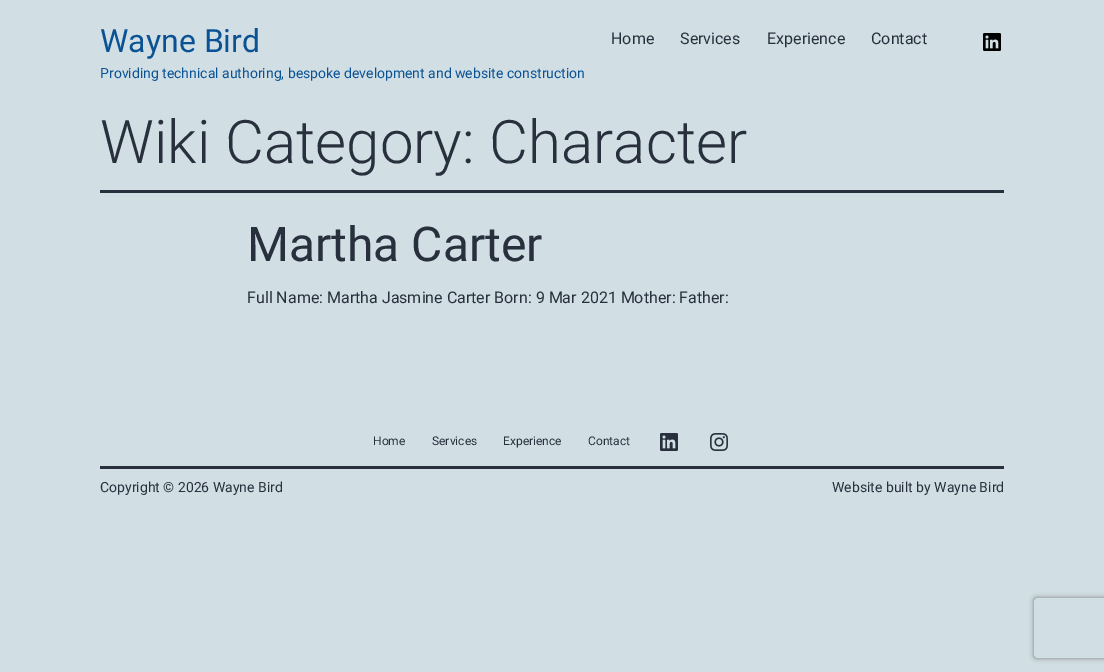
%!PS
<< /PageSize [1104 672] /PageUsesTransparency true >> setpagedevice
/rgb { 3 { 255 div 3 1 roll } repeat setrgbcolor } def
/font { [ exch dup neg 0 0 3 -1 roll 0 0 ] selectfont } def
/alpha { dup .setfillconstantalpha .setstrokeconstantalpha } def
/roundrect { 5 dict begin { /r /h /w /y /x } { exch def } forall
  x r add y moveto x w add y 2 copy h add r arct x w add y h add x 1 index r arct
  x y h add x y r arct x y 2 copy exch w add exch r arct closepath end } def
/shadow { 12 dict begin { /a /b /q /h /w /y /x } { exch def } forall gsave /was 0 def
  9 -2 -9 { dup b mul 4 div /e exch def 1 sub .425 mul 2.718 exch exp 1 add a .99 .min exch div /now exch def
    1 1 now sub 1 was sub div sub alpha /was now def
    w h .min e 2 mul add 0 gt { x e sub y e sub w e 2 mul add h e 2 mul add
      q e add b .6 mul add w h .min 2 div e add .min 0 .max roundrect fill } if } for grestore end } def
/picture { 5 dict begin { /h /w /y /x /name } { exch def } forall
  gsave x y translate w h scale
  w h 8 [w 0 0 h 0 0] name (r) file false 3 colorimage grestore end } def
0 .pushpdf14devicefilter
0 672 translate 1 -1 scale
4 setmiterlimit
209 223 228 rgb
0 0 1104 672 rectfill
(img/1.rgb) 983 33 18 18 picture
40 48 61 rgb
100 190 904 3 rectfill
(img/2.rgb) 660 433 18 18 picture
(img/3.rgb) 710 433 18 18 picture
100 466 904 3 rectfill
gsave
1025 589 moveto 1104 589 lineto 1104 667 lineto 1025 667 lineto closepath 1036 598 moveto 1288 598 lineto 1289 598 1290 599 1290 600 curveto 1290 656 lineto 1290 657 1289 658 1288 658 curveto 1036 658 lineto 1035 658 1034 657 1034 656 curveto 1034 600 lineto 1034 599 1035 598 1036 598 curveto closepath eoclip newpath
128 128 128 rgb
1034 598 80 60 2 2.5 1 shadow
grestore
/Roboto-Regular 32 font
11 82 148 rgb
100 52 moveto (Wayne Bird) show
/Roboto-Regular 14 font
100 78 moveto (Providing technical authoring, bespoke development and website construction) show
/Roboto-Regular 16 font
40 48 61 rgb
[
  [(Home) 611 44]
  [(Services) 680 44]
  [(Experience) 767 44]
  [(Contact) 871 44]
] { aload pop moveto show } forall
/Roboto-Light 60 font
100 163 moveto (Wiki Category: Character) show
/Roboto-Regular 48 font
247 261 moveto (Martha Carter) show
/Roboto-Regular 16 font
247 303 moveto (Full Name: Martha Jasmine Carter Born: 9 Mar 2021 Mother: Father:) show
/Roboto-Regular 12 font
[
  [(Home) 373 445]
  [(Services) 432 445]
  [(Experience) 503 445]
  [(Contact) 588 445]
] { aload pop moveto show } forall
/Roboto-Regular 14 font
100 492 moveto (Copyright © 2026 Wayne Bird) show
832 492 moveto (Website built by Wayne Bird) show
.poppdf14devicefilter showpage
